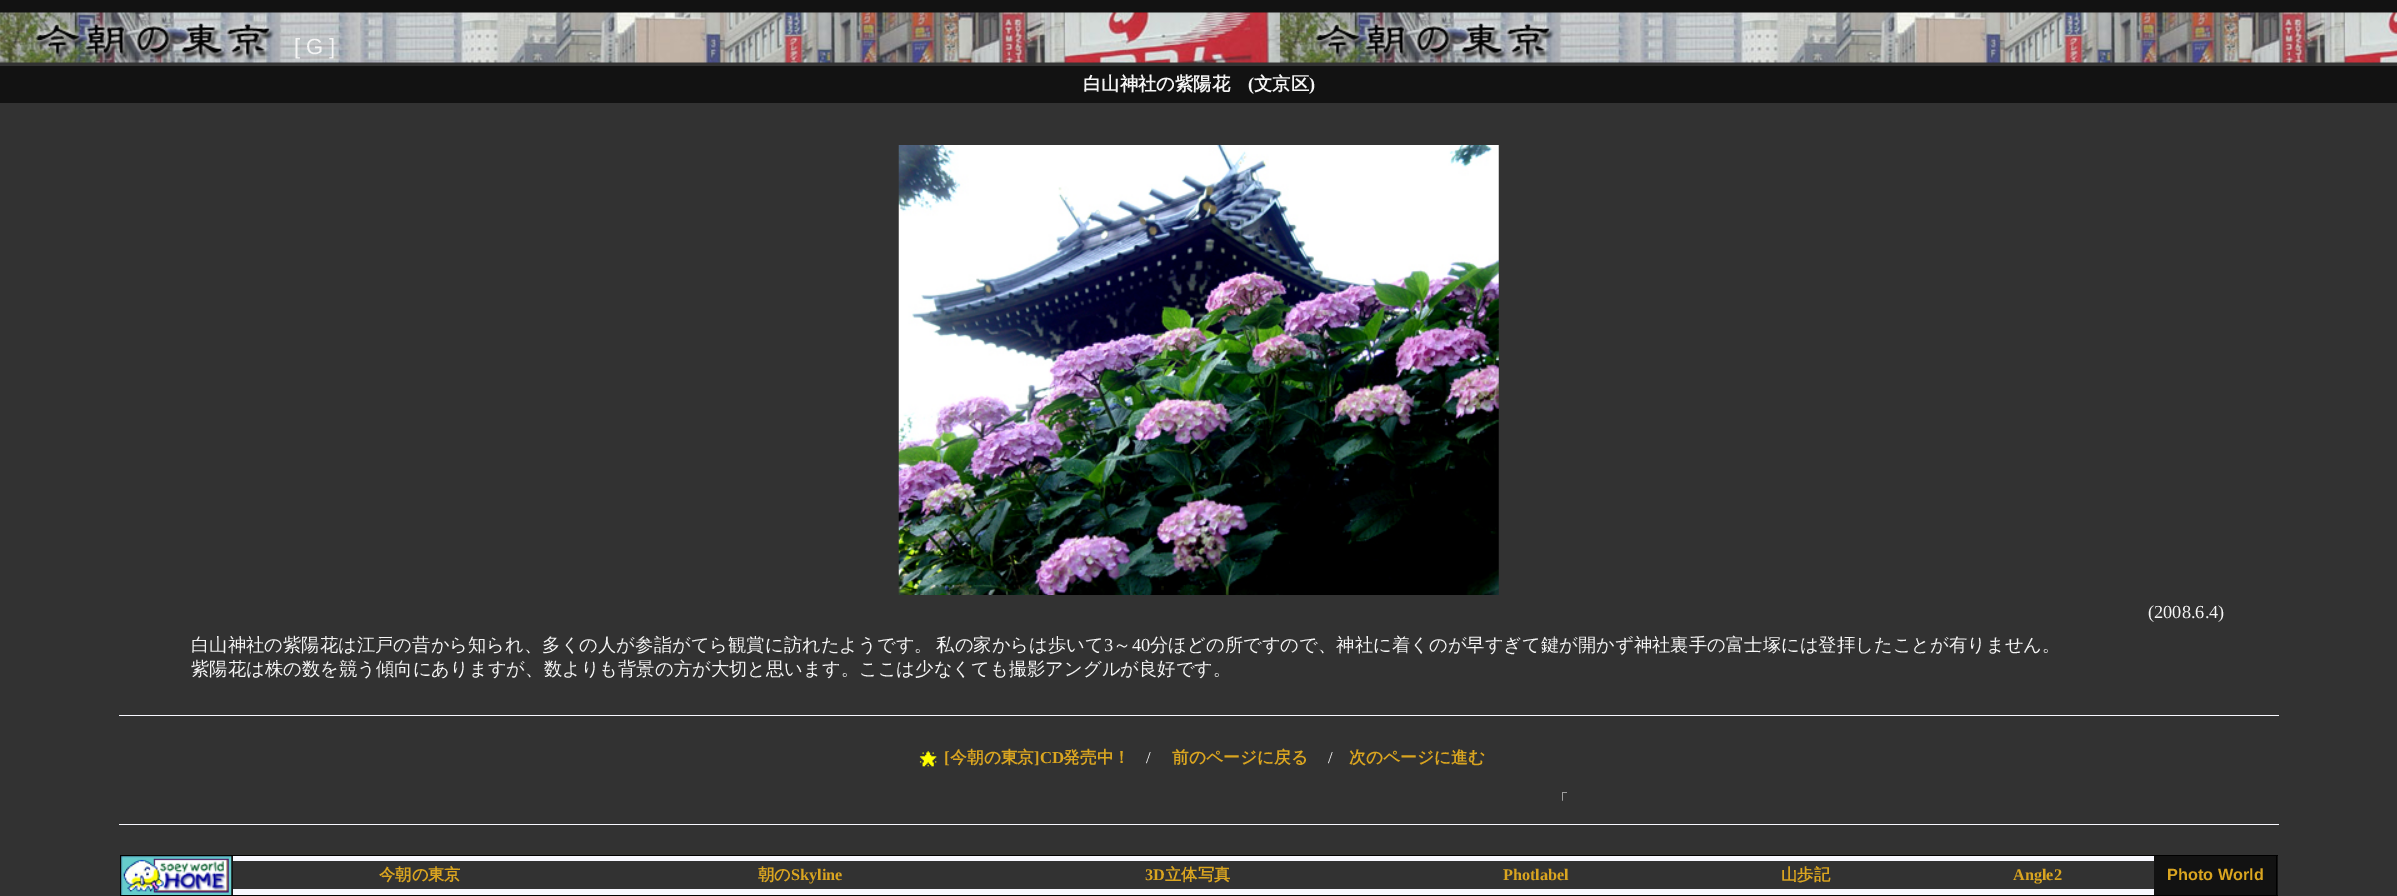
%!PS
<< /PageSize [2397 896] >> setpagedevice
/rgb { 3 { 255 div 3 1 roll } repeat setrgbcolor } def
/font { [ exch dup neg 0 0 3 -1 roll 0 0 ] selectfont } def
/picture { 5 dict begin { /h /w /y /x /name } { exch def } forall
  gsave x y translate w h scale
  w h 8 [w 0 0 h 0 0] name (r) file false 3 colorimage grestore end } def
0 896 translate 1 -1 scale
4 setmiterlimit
50 50 50 rgb
0 0 2397 896 rectfill
18 18 18 rgb
0 0 2397 13 rectfill
(img/1.rgb) 0 12 2397 51 picture
0 66 2397 37 rectfill
(img/2.rgb) 898 145 601 450 picture
248 248 255 rgb
119 715 2160 1 rectfill
(img/3.rgb) 919 751 18 16 picture
[
  [119 824 2160 1 248 248 255]
  [121 856 2157 39 18 18 18]
  [120 855 2158 1 0 0 0]
  [2276 855 1 41 0 0 0]
  [120 895 2158 1 0 0 0]
  [120 855 1 41 0 0 0]
] { aload pop rgb rectfill } forall
(img/4.rgb) 121 856 111 39 picture
248 248 255 rgb
233 856 1921 39 rectfill
50 50 50 rgb
233 861 1921 28 rectfill
/LiberationSans-Regular 22 font
245 245 245 rgb
294 54 moveto ([ G ]) show
/WenQuanYiZenHei-Bold 18.33 font
1083 90 moveto (白山神社の紫陽花) show
/LiberationSerif-Bold 18.33 font
1248 90 moveto (\() show
/WenQuanYiZenHei-Bold 18.33 font
1254 90 moveto (文京区) show
/LiberationSerif-Bold 18.33 font
1309 90 moveto (\)) show
/LiberationSerif-Regular 18.33 font
2148 618 moveto (\(2008.6.4\)) show
/WenQuanYiZenHei-Medium 18.33 font
191 651 moveto -2 0 32 (白山神社の紫陽花は江戸の昔から知られ、多くの人が参詣がてら観賞に訪れたようです。 私の家からは歩いて) widthshow
/LiberationSerif-Regular 18.33 font
1104 651 moveto (3) show
/WenQuanYiZenHei-Medium 18.33 font
1113 651 moveto (～) show
/LiberationSerif-Regular 18.33 font
1132 651 moveto (40) show
/WenQuanYiZenHei-Medium 18.33 font
1150 651 moveto (分ほどの所ですので、神社に着くのが早すぎて鍵が開かず神社裏手の富士塚には登拝したことが有りません。) show
191 675 moveto (紫陽花は株の数を競う傾向にありますが、数よりも背景の方が大切と思います。ここは少なくても撮影アングルが良好です。) show
/LiberationSerif-Bold 16.75 font
218 165 32 rgb
944 763 moveto ([) show
/WenQuanYiZenHei-Bold 16.75 font
950 763 moveto (今朝の東京) show
/LiberationSerif-Bold 16.75 font
1034 763 moveto (]CD) show
/WenQuanYiZenHei-Bold 16.75 font
1063 763 moveto (発売中！) show
/LiberationSerif-Regular 16.75 font
255 255 255 rgb
1146 763 moveto (/) show
/WenQuanYiZenHei-Bold 16.75 font
218 165 32 rgb
1172 763 moveto (前のページに戻る) show
/LiberationSerif-Regular 16.75 font
255 255 255 rgb
1328 763 moveto (/) show
/WenQuanYiZenHei-Bold 16.75 font
218 165 32 rgb
1349 763 moveto (次のページに進む) show
/WenQuanYiZenHei-Medium 16.75 font
255 255 255 rgb
1552 806 moveto (「) show
/WenQuanYiZenHei-Bold 16.25 font
218 165 32 rgb
379 880 moveto (今朝の東京) show
758 880 moveto (朝の) show
/LiberationSerif-Bold 16.25 font
791 880 moveto (Skyline) show
1145 880 moveto (3D) show
/WenQuanYiZenHei-Bold 16.25 font
1165 880 moveto (立体写真) show
/LiberationSerif-Bold 16.25 font
1503 880 moveto (Photlabel) show
/WenQuanYiZenHei-Bold 16.25 font
1781 880 moveto (山歩記) show
/LiberationSerif-Bold 16.25 font
2013 880 moveto (Angle2) show
/LiberationSans-Bold 16.25 font
2167 880 moveto (Photo World) show
showpage
